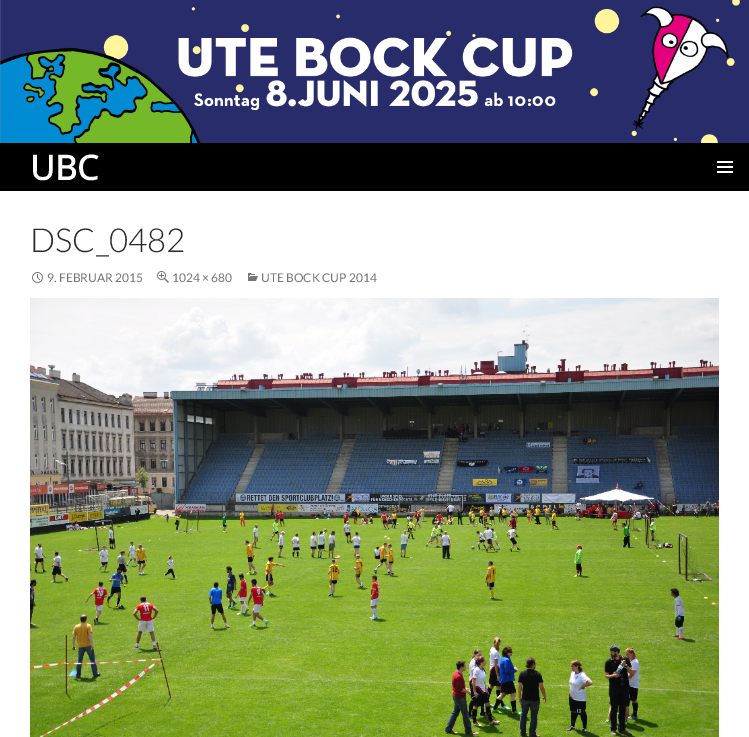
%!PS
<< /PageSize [749 737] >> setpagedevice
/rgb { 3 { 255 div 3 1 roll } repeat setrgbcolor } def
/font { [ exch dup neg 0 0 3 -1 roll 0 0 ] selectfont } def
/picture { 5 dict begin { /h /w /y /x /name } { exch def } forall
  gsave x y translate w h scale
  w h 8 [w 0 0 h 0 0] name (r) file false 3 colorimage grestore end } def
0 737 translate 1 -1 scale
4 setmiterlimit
255 255 255 rgb
0 0 749 737 rectfill
(img/1.rgb) 0 0 749 143 picture
0 0 0 rgb
0 143 749 48 rectfill
(img/2.rgb) 717 161 16 12 picture
(img/3.rgb) 32 272 11 11 picture
(img/4.rgb) 157 271 12 12 picture
(img/5.rgb) 248 273 10 8 picture
(img/6.rgb) 30 298 689 439 picture
/OpenSans-Bold 34 font
255 255 255 rgb
30 180 moveto (UBC) show
/Lato-Light 33 font
43 43 43 rgb
30 252 moveto (DSC_0482) show
/Lato-Regular 12 font
118 118 118 rgb
[
  [(9. FEBRUAR 2015) 47 282]
  [(1024 × 680) 172 282]
  [(UTE BOCK CUP 2014) 261 282]
] { aload pop moveto show } forall
showpage
